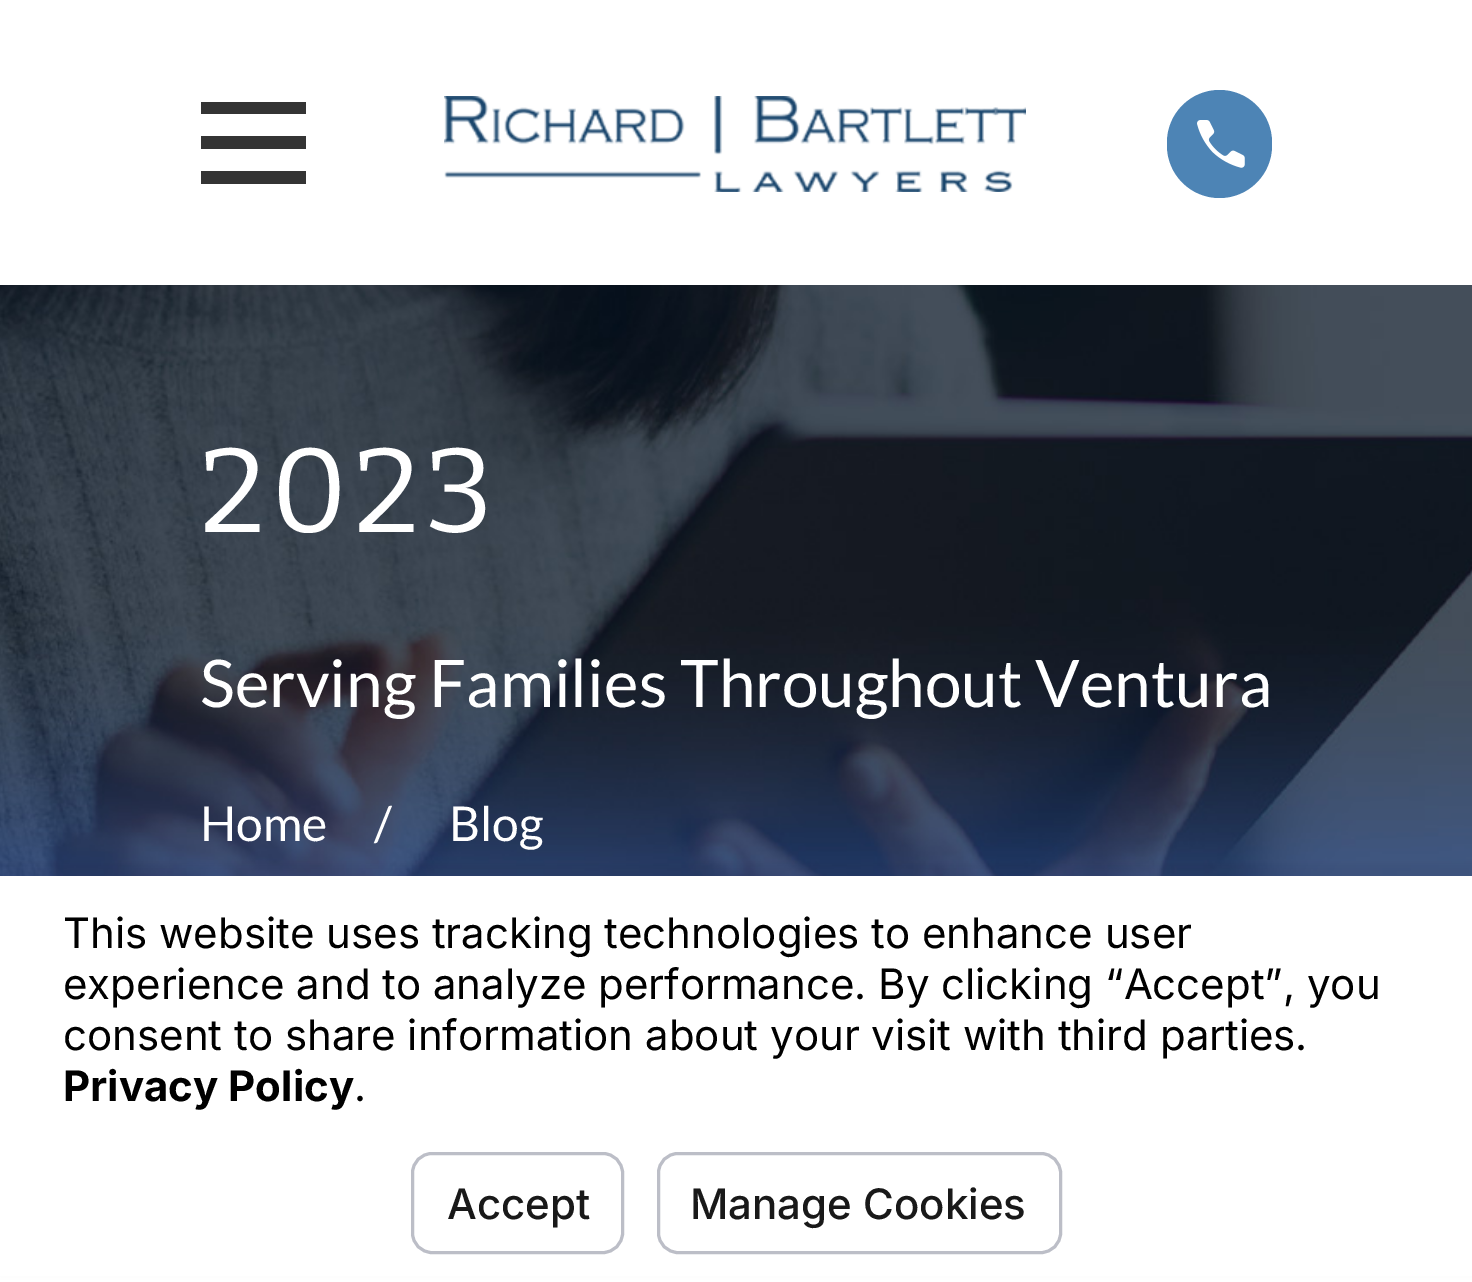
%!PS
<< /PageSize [1472 1282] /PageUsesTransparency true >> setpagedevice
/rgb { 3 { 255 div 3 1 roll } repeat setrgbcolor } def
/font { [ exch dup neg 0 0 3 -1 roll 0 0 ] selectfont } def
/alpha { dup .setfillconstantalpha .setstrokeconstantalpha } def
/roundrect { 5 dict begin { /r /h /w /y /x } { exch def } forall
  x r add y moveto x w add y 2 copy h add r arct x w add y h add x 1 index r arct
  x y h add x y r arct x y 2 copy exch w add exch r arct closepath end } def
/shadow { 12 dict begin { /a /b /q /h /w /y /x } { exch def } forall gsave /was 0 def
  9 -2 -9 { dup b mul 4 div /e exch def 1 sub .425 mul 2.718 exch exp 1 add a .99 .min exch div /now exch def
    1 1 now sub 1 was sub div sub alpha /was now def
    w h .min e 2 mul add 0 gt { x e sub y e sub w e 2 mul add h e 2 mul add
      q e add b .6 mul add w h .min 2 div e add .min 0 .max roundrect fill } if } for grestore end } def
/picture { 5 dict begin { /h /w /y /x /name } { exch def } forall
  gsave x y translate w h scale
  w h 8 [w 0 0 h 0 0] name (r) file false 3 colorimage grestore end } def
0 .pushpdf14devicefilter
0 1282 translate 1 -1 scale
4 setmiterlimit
255 255 255 rgb
0 0 1472 1282 rectfill
52 52 52 rgb
201 102 moveto 201 114 lineto 306 114 lineto 306 102 lineto closepath 201 136 moveto 201 149 lineto 306 149 lineto 306 136 lineto closepath 201 171 moveto 201 184 lineto 306 184 lineto 306 171 lineto closepath fill
(img/1.rgb) 444 96 582 96 picture
77 132 181 rgb
1167 90 105 108 52.5 roundrect fill
(img/2.rgb) 1197 120 48 48 picture
(img/3.rgb) 0 285 1472 591 picture
0 0 0 rgb
0 864 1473 408 0 4.5 0.05 shadow
255 255 255 rgb
0 876 1472 400 rectfill
188 190 199 rgb
3 setlinewidth
412.5 1153.5 210 99 19.5 roundrect stroke
658.5 1153.5 402 99 19.5 roundrect stroke
/Bitter-Regular 119.5 font
255 255 255 rgb
200 532 moveto 6 0 (2023) ashow
/Lato-Regular 65.75 font
200 707 moveto (Serving Families Throughout Ventura) show
/Lato-Regular 48 font
[
  [(Home) 200 841]
  [(/) 374 841]
  [(Blog) 449 841]
] { aload pop moveto show } forall
/Inter-Regular 42 font
0 0 0 rgb
[
  [(This website uses tracking technologies to enhance user) 63 948]
  [(experience and to analyze performance. By clicking “Accept”, you) 63 999]
  [(consent to share information about your visit with third parties.) 63 1050]
] { aload pop moveto show } forall
/Inter-Bold 42 font
63 1101 moveto (Privacy Policy) show
/Inter-Regular 42 font
354 1101 moveto (.) show
/Inter-Medium 42 font
25 25 25 rgb
447 1219 moveto (Accept) show
690 1219 moveto (Manage Cookies) show
.poppdf14devicefilter showpage
